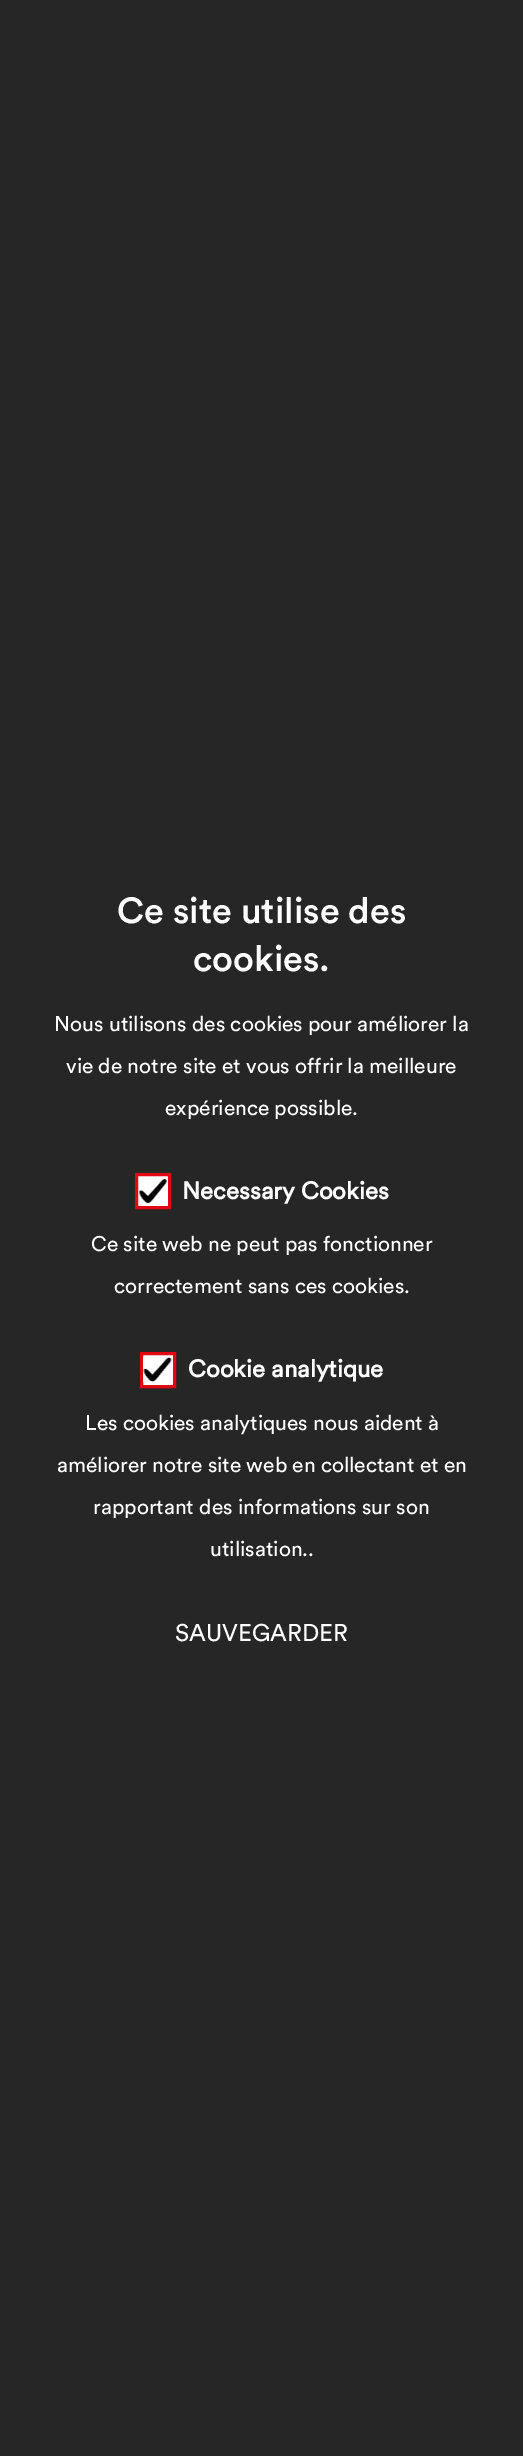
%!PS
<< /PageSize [523 2456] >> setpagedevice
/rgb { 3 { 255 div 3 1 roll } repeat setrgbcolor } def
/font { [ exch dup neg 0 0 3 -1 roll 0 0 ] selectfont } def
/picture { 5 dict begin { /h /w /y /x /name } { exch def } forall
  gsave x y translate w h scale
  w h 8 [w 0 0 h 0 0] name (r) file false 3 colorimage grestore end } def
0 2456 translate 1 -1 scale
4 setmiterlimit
38 38 38 rgb
0 0 523 2456 rectfill
255 255 255 rgb
136.5 1174.5 moveto 169.5 1174.5 lineto 169.5 1207.5 lineto 136.5 1207.5 lineto closepath gsave fill grestore
227 6 19 rgb
3 setlinewidth
stroke
(img/1.rgb) 139 1178 28 26 picture
255 255 255 rgb
141.5 1353.5 moveto 174.5 1353.5 lineto 174.5 1386.5 lineto 141.5 1386.5 lineto closepath gsave fill grestore
227 6 19 rgb
stroke
(img/2.rgb) 143 1357 29 25 picture
/Circular-Medium 36 font
255 255 255 rgb
117 923 moveto (Ce site utilise des) show
193 971 moveto (cookies.) show
/Circular-Regular 21 font
[
  [(Nous utilisons des cookies pour améliorer la) 54 1031]
  [(vie de notre site et vous offrir la meilleure) 66 1073]
  [(expérience possible.) 165 1115]
] { aload pop moveto show } forall
/Circular-Bold 24 font
182 1199 moveto (Necessary Cookies) show
/Circular-Regular 21 font
91 1251 moveto (Ce site web ne peut pas fonctionner) show
114 1293 moveto (correctement sans ces cookies.) show
/Circular-Bold 24 font
188 1377 moveto (Cookie analytique) show
/Circular-Regular 21 font
[
  [(Les cookies analytiques nous aident à) 85 1430]
  [(améliorer notre site web en collectant et en) 57 1472]
  [(rapportant des informations sur son) 93 1514]
  [(utilisation..) 210 1556]
] { aload pop moveto show } forall
/Circular-Regular 24 font
175 1641 moveto (SAUVEGARDER) show
showpage
